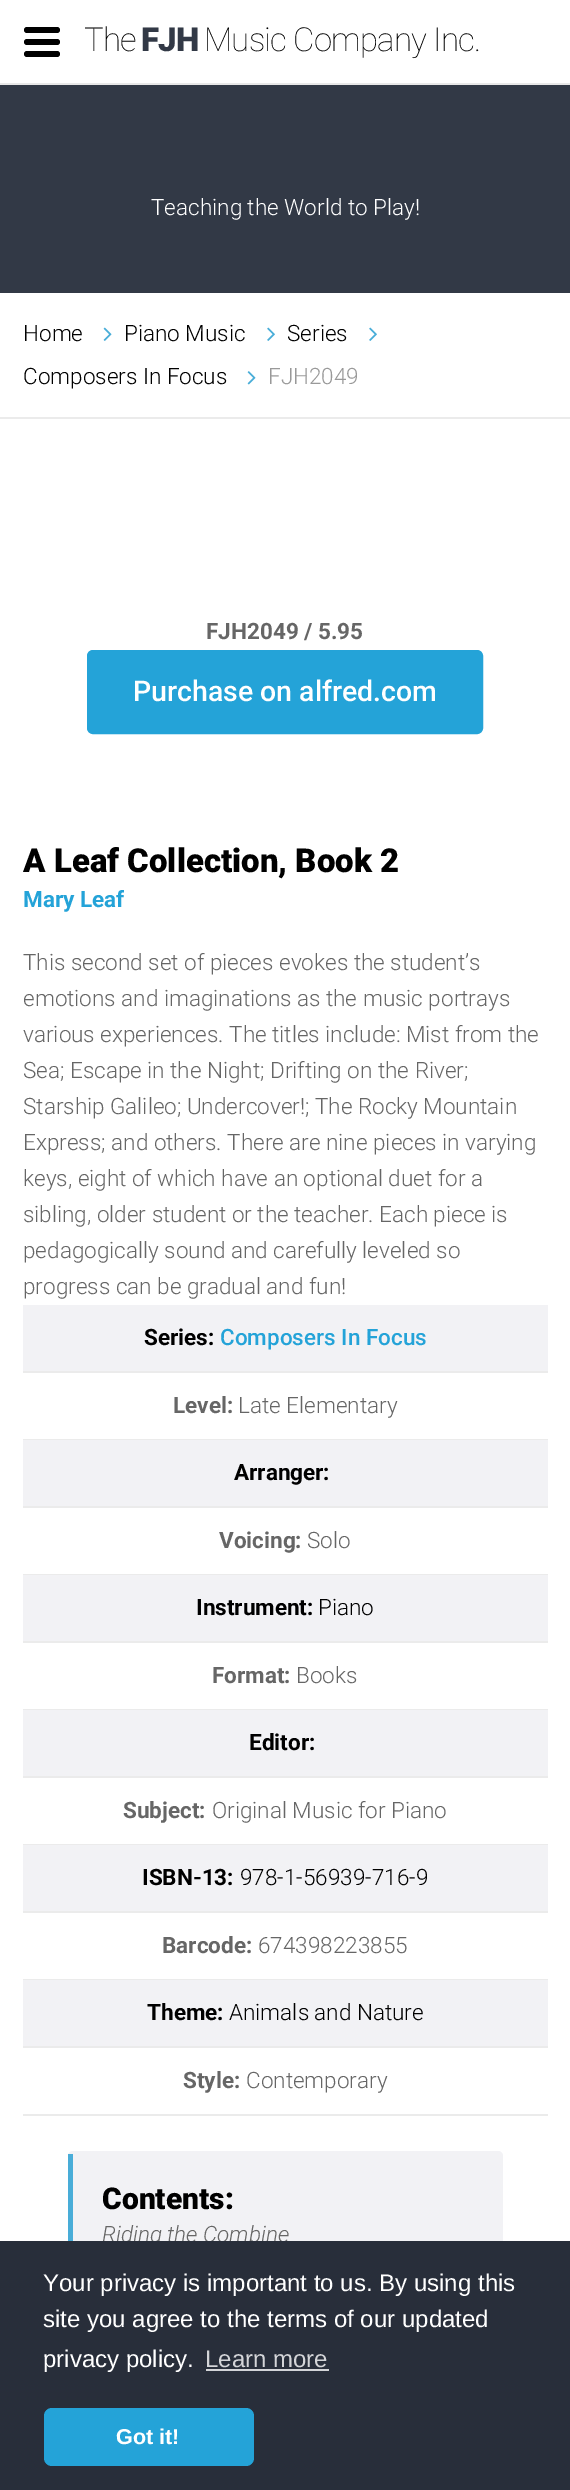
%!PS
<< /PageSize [570 2490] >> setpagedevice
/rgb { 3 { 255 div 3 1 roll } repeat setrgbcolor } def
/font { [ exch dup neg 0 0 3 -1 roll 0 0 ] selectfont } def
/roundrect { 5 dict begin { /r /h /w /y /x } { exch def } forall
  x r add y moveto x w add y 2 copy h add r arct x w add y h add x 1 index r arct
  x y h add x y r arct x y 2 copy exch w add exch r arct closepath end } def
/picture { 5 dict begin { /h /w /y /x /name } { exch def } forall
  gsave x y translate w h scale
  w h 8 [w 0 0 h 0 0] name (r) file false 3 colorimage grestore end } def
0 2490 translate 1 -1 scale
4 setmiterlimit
255 255 255 rgb
0 0 570 2490 rectfill
0 0 0 rgb
57 45 moveto 27 45 lineto 25.5 45 24 43.5 24 42 curveto 24 40.5 25.5 39 27 39 curveto 57 39 lineto 58.5 39 60 40.5 60 42 curveto 60 43.5 58.5 45 57 45 curveto closepath 57 57 moveto 27 57 lineto 25.5 57 24 55.5 24 54 curveto 24 52.5 25.5 51 27 51 curveto 57 51 lineto 58.5 51 60 52.5 60 54 curveto 60 55.5 58.5 57 57 57 curveto closepath 57 33 moveto 27 33 lineto 25.5 33 24 31.5 24 30 curveto 24 28.5 25.5 27 27 27 curveto 57 27 lineto 58.5 27 60 28.5 60 30 curveto 60 31.5 58.5 33 57 33 curveto closepath fill
[
  [0 83 570 2 232 232 232]
  [0 85 570 208 50 57 70]
  [0 417 570 2 235 235 235]
] { aload pop rgb rectfill } forall
(img/1.rgb) 103 327 9 14 picture
(img/2.rgb) 267 327 8 14 picture
(img/2.rgb) 369 327 8 14 picture
(img/3.rgb) 247 371 9 14 picture
36 163 216 rgb
88.5 651.5 393 81 4.5 roundrect gsave fill grestore
3 setlinewidth
stroke
[
  [23 1305 525 66 242 242 245]
  [23 1371 525 2 235 235 235]
  [23 1439 525 1 235 235 235]
  [23 1440 525 66 242 242 245]
  [23 1506 525 2 235 235 235]
  [23 1574 525 1 235 235 235]
  [23 1575 525 66 242 242 245]
  [23 1641 525 2 235 235 235]
  [23 1709 525 1 235 235 235]
  [23 1710 525 66 242 242 245]
  [23 1776 525 2 235 235 235]
  [23 1844 525 1 235 235 235]
  [23 1845 525 66 242 242 245]
  [23 1911 525 2 235 235 235]
  [23 1979 525 1 235 235 235]
  [23 1980 525 66 242 242 245]
  [23 2046 525 2 235 235 235]
  [23 2114 525 2 235 235 235]
] { aload pop rgb rectfill } forall
242 242 245 rgb
68 2151 435 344 5 roundrect fill
73 173 216 rgb
68 2154 5 87 rectfill
/Roboto-Thin 33 font
0 0 0 rgb
84 51 moveto -0.8 0 (The) ashow
/Roboto-Black 33 font
50 57 70 rgb
141 51 moveto -0.8 0 (FJH) ashow
/Roboto-Thin 33 font
0 0 0 rgb
204 51 moveto -0.8 0 (Music Company Inc.) ashow
/Roboto-Light 22.5 font
255 255 255 rgb
151 215 moveto (Teaching the World to Play!) show
0 0 0 rgb
[
  [(Home) 23 341]
  [(Piano Music) 124 341]
  [(Series) 287 341]
  [(Composers In Focus) 23 384]
] { aload pop moveto show } forall
153 153 153 rgb
268 384 moveto (FJH2049) show
/Roboto-Bold 22.5 font
102 102 102 rgb
206 639 moveto (FJH2049 / 5.95) show
/Roboto-Medium 28.5 font
255 255 255 rgb
133 701 moveto (Purchase on alfred.com) show
/Roboto-Black 33 font
0 0 0 rgb
23 872 moveto (A Leaf Collection, Book 2) show
/Roboto-Bold 22.5 font
36 163 216 rgb
23 907 moveto (Mary Leaf) show
/Roboto-Light 22.5 font
102 102 102 rgb
[
  [(This second set of pieces evokes the student’s) 23 970]
  [(emotions and imaginations as the music portrays) 23 1006]
  [(various experiences. The titles include: Mist from the) 23 1042]
  [(Sea; Escape in the Night; Drifting on the River;) 23 1078]
  [(Starship Galileo; Undercover!; The Rocky Mountain) 23 1114]
  [(Express; and others. There are nine pieces in varying) 23 1150]
  [(keys, eight of which have an optional duet for a) 23 1186]
  [(sibling, older student or the teacher. Each piece is) 23 1222]
  [(pedagogically sound and carefully leveled so) 23 1258]
  [(progress can be gradual and fun!) 23 1294]
] { aload pop moveto show } forall
/Roboto-Bold 22.5 font
0 0 0 rgb
144 1345 moveto (Series:) show
/Roboto-Medium 22.5 font
36 163 216 rgb
220 1345 moveto (Composers In Focus) show
/Roboto-Bold 22.5 font
102 102 102 rgb
173 1413 moveto (Level:) show
/Roboto-Light 22.5 font
238 1413 moveto (Late Elementary) show
/Roboto-Bold 22.5 font
0 0 0 rgb
234 1480 moveto (Arranger:) show
102 102 102 rgb
219 1548 moveto (Voicing:) show
/Roboto-Light 22.5 font
307 1548 moveto (Solo) show
/Roboto-Bold 22.5 font
0 0 0 rgb
196 1615 moveto (Instrument:) show
/Roboto-Light 22.5 font
318 1615 moveto (Piano) show
/Roboto-Bold 22.5 font
102 102 102 rgb
212 1683 moveto (Format:) show
/Roboto-Light 22.5 font
296 1683 moveto (Books) show
/Roboto-Bold 22.5 font
0 0 0 rgb
249 1750 moveto (Editor:) show
102 102 102 rgb
123 1818 moveto (Subject:) show
/Roboto-Light 22.5 font
212 1818 moveto (Original Music for Piano) show
/Roboto-Bold 22.5 font
0 0 0 rgb
142 1885 moveto (ISBN-13:) show
/Roboto-Light 22.5 font
240 1885 moveto (978-1-56939-716-9) show
/Roboto-Bold 22.5 font
102 102 102 rgb
162 1953 moveto (Barcode:) show
/Roboto-Light 22.5 font
258 1953 moveto (674398223855) show
/Roboto-Bold 22.5 font
0 0 0 rgb
147 2020 moveto (Theme:) show
/Roboto-Light 22.5 font
229 2020 moveto (Animals and Nature) show
/Roboto-Bold 22.5 font
102 102 102 rgb
183 2088 moveto (Style:) show
/Roboto-Light 22.5 font
246 2088 moveto (Contemporary) show
/Roboto-Black 30 font
0 0 0 rgb
102 2209 moveto (Contents:) show
/Roboto-LightItalic 22.5 font
102 102 102 rgb
102 2242 moveto (Riding the Combine) show
40 46 58 rgb
0 2241 570 249 rectfill
/LiberationSans-Regular 24 font
255 255 255 rgb
[
  [(Your privacy is important to us. By using this) 43 2291]
  [(site you agree to the terms of our updated) 43 2327]
  [(privacy policy.) 43 2367]
] { aload pop moveto show } forall
212 213 216 rgb
205 2367 moveto (Learn more) show
206 2369 123 2 rectfill
36 163 216 rgb
44 2408 210 58 8 roundrect fill
/LiberationSans-Bold 21.5 font
255 255 255 rgb
116 2444 moveto (Got it!) show
showpage
